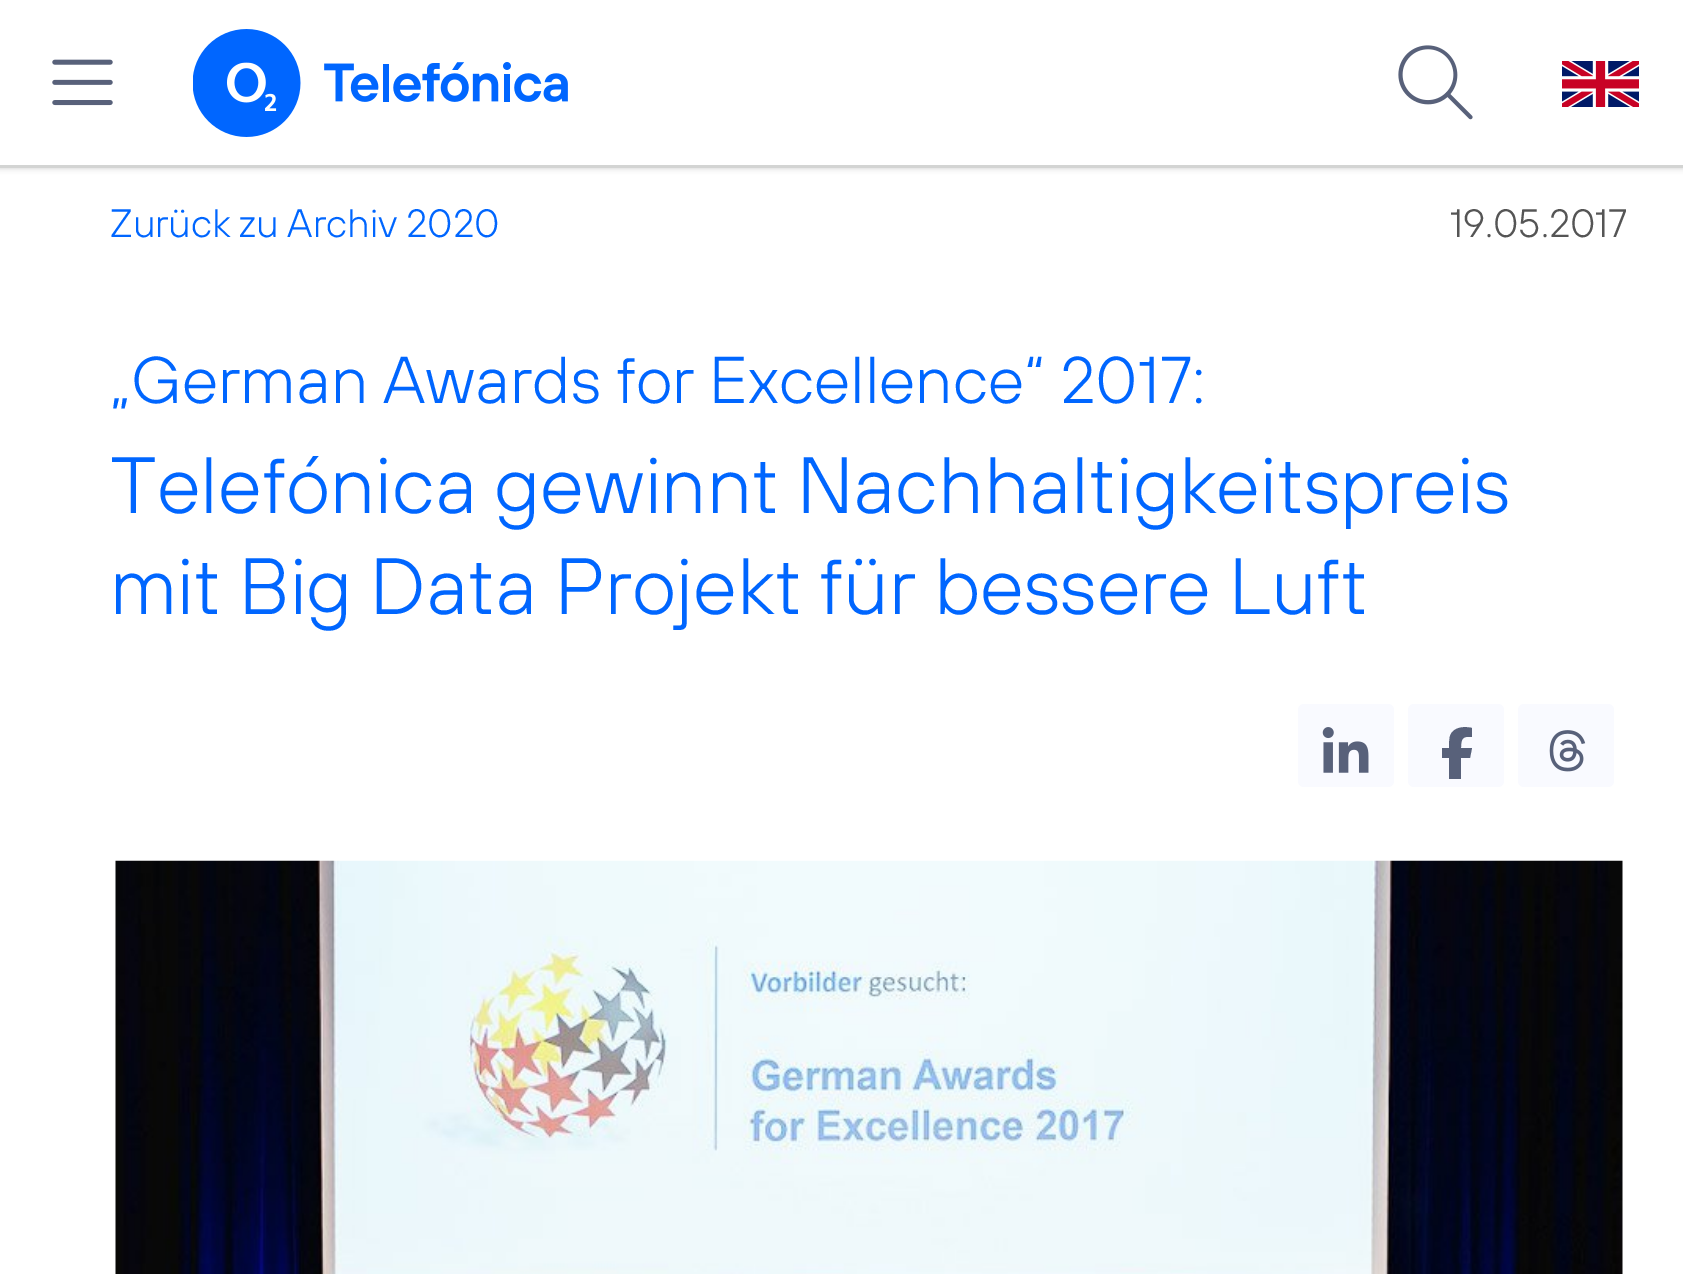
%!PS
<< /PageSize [1683 1274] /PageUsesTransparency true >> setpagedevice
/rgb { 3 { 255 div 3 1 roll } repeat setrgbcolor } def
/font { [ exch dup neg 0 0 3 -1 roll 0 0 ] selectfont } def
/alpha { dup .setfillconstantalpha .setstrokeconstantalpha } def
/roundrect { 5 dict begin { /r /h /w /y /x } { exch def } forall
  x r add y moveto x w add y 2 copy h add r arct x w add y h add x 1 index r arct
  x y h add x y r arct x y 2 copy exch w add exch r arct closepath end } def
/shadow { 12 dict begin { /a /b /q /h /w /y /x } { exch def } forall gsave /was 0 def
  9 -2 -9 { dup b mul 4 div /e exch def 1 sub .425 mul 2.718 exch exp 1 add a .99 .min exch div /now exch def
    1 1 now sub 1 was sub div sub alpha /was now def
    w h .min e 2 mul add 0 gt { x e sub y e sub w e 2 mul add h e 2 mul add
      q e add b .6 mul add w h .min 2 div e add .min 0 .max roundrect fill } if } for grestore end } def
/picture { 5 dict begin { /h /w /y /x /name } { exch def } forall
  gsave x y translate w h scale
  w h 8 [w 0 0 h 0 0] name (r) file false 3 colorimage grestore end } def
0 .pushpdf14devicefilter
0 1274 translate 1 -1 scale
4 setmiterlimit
255 255 255 rgb
0 0 1683 1274 rectfill
0 0 0 rgb
0 0 1683 168 0 3 0.2 shadow
255 255 255 rgb
0 0 1683 165 rectfill
211 212 211 rgb
0 165 1683 3 rectfill
(img/1.rgb) 52 59 61 47 picture
(img/2.rgb) 193 29 375 108 picture
(img/3.rgb) 1398 45 75 75 picture
(img/4.rgb) 1562 61 77 46 picture
249 250 255 rgb
1298 704 96 83 6 roundrect fill
(img/5.rgb) 1322 727 47 46 picture
1408 704 96 83 6 roundrect fill
88 97 122 rgb
1449 758 moveto 1449 779 lineto 1461 779 lineto 1461 758 lineto 1470 758 lineto 1472 748 lineto 1461 748 lineto 1461 738 1463 736 1472 737 curveto 1472 728 lineto 1464 726 1453 727 1450 736 curveto 1449 740 1449 744 1449 748 curveto 1442 748 lineto 1442 758 lineto closepath fill
249 250 255 rgb
1518 704 96 83 6 roundrect fill
(img/6.rgb) 1549 730 37 42 picture
(img/7.rgb) 115 860 1508 414 picture
/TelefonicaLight-Light 39.5 font
0 102 255 rgb
110 237 moveto (Zurück zu Archiv 2020) show
85 85 85 rgb
1450 237 moveto (19.05.2017) show
/TelefonicaLight-Light 66 font
0 102 255 rgb
110 403 moveto („German Awards for Excellence“ 2017:) show
/TelefonicaLight-Light 79.75 font
110 513 moveto (Telefónica gewinnt Nachhaltigkeitspreis) show
110 614 moveto (mit Big Data Projekt für bessere Luft) show
.poppdf14devicefilter showpage
